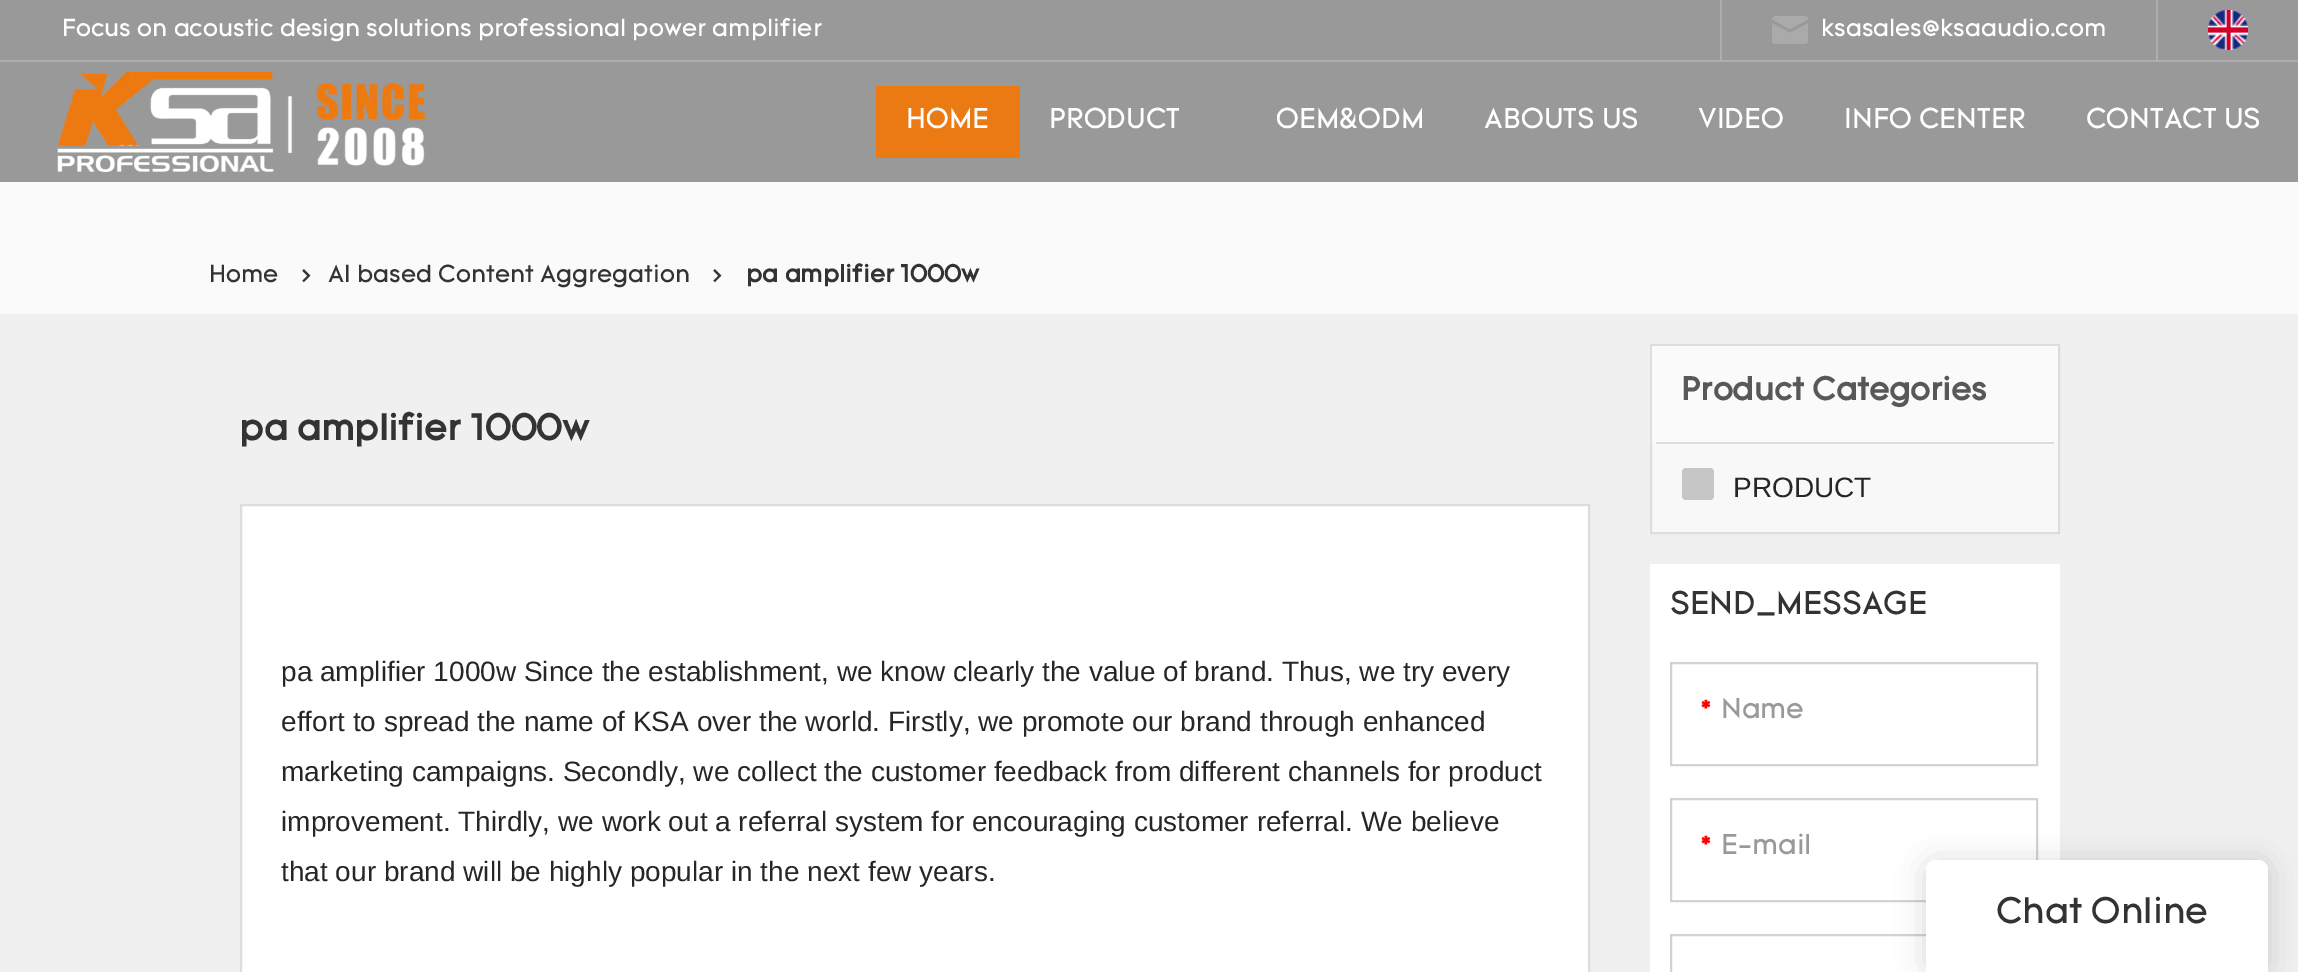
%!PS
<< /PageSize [2298 972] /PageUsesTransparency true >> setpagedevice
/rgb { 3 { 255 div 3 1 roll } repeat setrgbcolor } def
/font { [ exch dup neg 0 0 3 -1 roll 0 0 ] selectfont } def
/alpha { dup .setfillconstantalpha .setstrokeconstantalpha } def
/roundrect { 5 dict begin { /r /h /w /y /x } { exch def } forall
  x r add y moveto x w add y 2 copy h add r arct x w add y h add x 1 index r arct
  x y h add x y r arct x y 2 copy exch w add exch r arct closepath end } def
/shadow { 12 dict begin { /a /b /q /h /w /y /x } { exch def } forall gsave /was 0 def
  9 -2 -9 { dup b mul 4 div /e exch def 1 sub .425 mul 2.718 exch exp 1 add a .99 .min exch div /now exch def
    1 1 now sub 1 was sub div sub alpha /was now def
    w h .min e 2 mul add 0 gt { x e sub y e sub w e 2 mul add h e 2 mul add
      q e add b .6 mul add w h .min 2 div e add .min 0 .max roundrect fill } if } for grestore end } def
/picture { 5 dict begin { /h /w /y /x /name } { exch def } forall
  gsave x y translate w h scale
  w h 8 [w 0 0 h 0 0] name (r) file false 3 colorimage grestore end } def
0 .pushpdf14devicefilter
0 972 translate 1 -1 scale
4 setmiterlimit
240 240 240 rgb
0 0 2298 972 rectfill
[
  [0 0 2298 182 153 153 153]
  [0 60 2298 2 173 173 173]
  [1720 0 2 60 173 173 173]
] { aload pop rgb rectfill } forall
(img/1.rgb) 1772 16 36 28 picture
2156 0 2 60 rectfill
(img/2.rgb) 2208 10 40 40 picture
(img/3.rgb) 57 72 369 100 picture
236 122 18 rgb
876 86 144 72 rectfill
250 250 250 rgb
0 182 2298 132 rectfill
255 255 255 rgb
241 505 moveto 1589 505 lineto 1589 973 lineto 241 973 lineto closepath gsave fill grestore
221 221 221 rgb
2 setlinewidth
stroke
248 248 248 rgb
1652 442 406 90 rectfill
221 221 221 rgb
1651 345 408 188 rectstroke
250 250 250 rgb
1652 346 406 96 rectfill
221 221 221 rgb
1656 442 398 2 rectfill
198 198 198 rgb
1682 468 32 32 4 roundrect fill
255 255 255 rgb
1650 564 410 408 rectfill
211 211 211 rgb
1671 663 366 102 rectstroke
1671 799 366 102 rectstroke
1671 935 366 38 rectstroke
0 0 0 rgb
1926 862 342 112 10 15 0.15 shadow
255 255 255 rgb
1936 860 moveto 2258 860 lineto 2263.5 860 2268 864.5 2268 870 curveto 2268 972 lineto 1926 972 lineto 1926 870 lineto 1926 864.5 1930.5 860 1936 860 curveto closepath fill
/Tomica-Regular 24 font
62 36 moveto (Focus on acoustic design solutions professional power amplifier) show
1821 36 moveto (ksasales@ksaaudio.com) show
/Tomica-Regular 28 font
[
  [(HOME) 906 128]
  [(PRODUCT) 1049 128]
  [(OEM&ODM) 1276 128]
  [(ABOUTS US) 1484 128]
  [(VIDEO) 1698 128]
  [(INFO CENTER) 1844 128]
  [(CONTACT US) 2086 128]
] { aload pop moveto show } forall
/Tomica-Regular 24 font
51 51 51 rgb
[
  [(Home) 209 282]
  [(>) 301 282]
  [(AI based Content Aggregation) 328 282]
  [(>) 712 282]
] { aload pop moveto show } forall
/Tomica-Bold 24 font
746 282 moveto (pa amplifier 1000w) show
/Tomica-Bold 36 font
239 440 moveto (pa amplifier 1000w) show
/LiberationSans-Regular 28 font
39 38 38 rgb
[
  [(pa amplifier 1000w Since the establishment, we know clearly the value of brand. Thus, we try every) 281 681]
  [(effort to spread the name of KSA over the world. Firstly, we promote our brand through enhanced) 281 731]
  [(marketing campaigns. Secondly, we collect the customer feedback from different channels for product) 281 781]
  [(improvement. Thirdly, we work out a referral system for encouraging customer referral. We believe) 281 831]
  [(that our brand will be highly popular in the next few years.) 281 881]
] { aload pop moveto show } forall
/Tomica-Bold 32 font
88 88 88 rgb
1681 400 moveto (Product Categories) show
/LiberationSans-Regular 28 font
39 38 38 rgb
1733 497 moveto (PRODUCT) show
/Tomica-Regular 32 font
51 51 51 rgb
1670 614 moveto (SEND_MESSAGE) show
/Tomica-Regular 28 font
255 0 0 rgb
1700 718 moveto (*) show
153 153 153 rgb
1721 718 moveto (Name) show
255 0 0 rgb
1700 854 moveto (*) show
153 153 153 rgb
1721 854 moveto (E-mail) show
/Tomica-Regular 36 font
51 51 51 rgb
1996 923 moveto (Chat Online) show
.poppdf14devicefilter showpage
